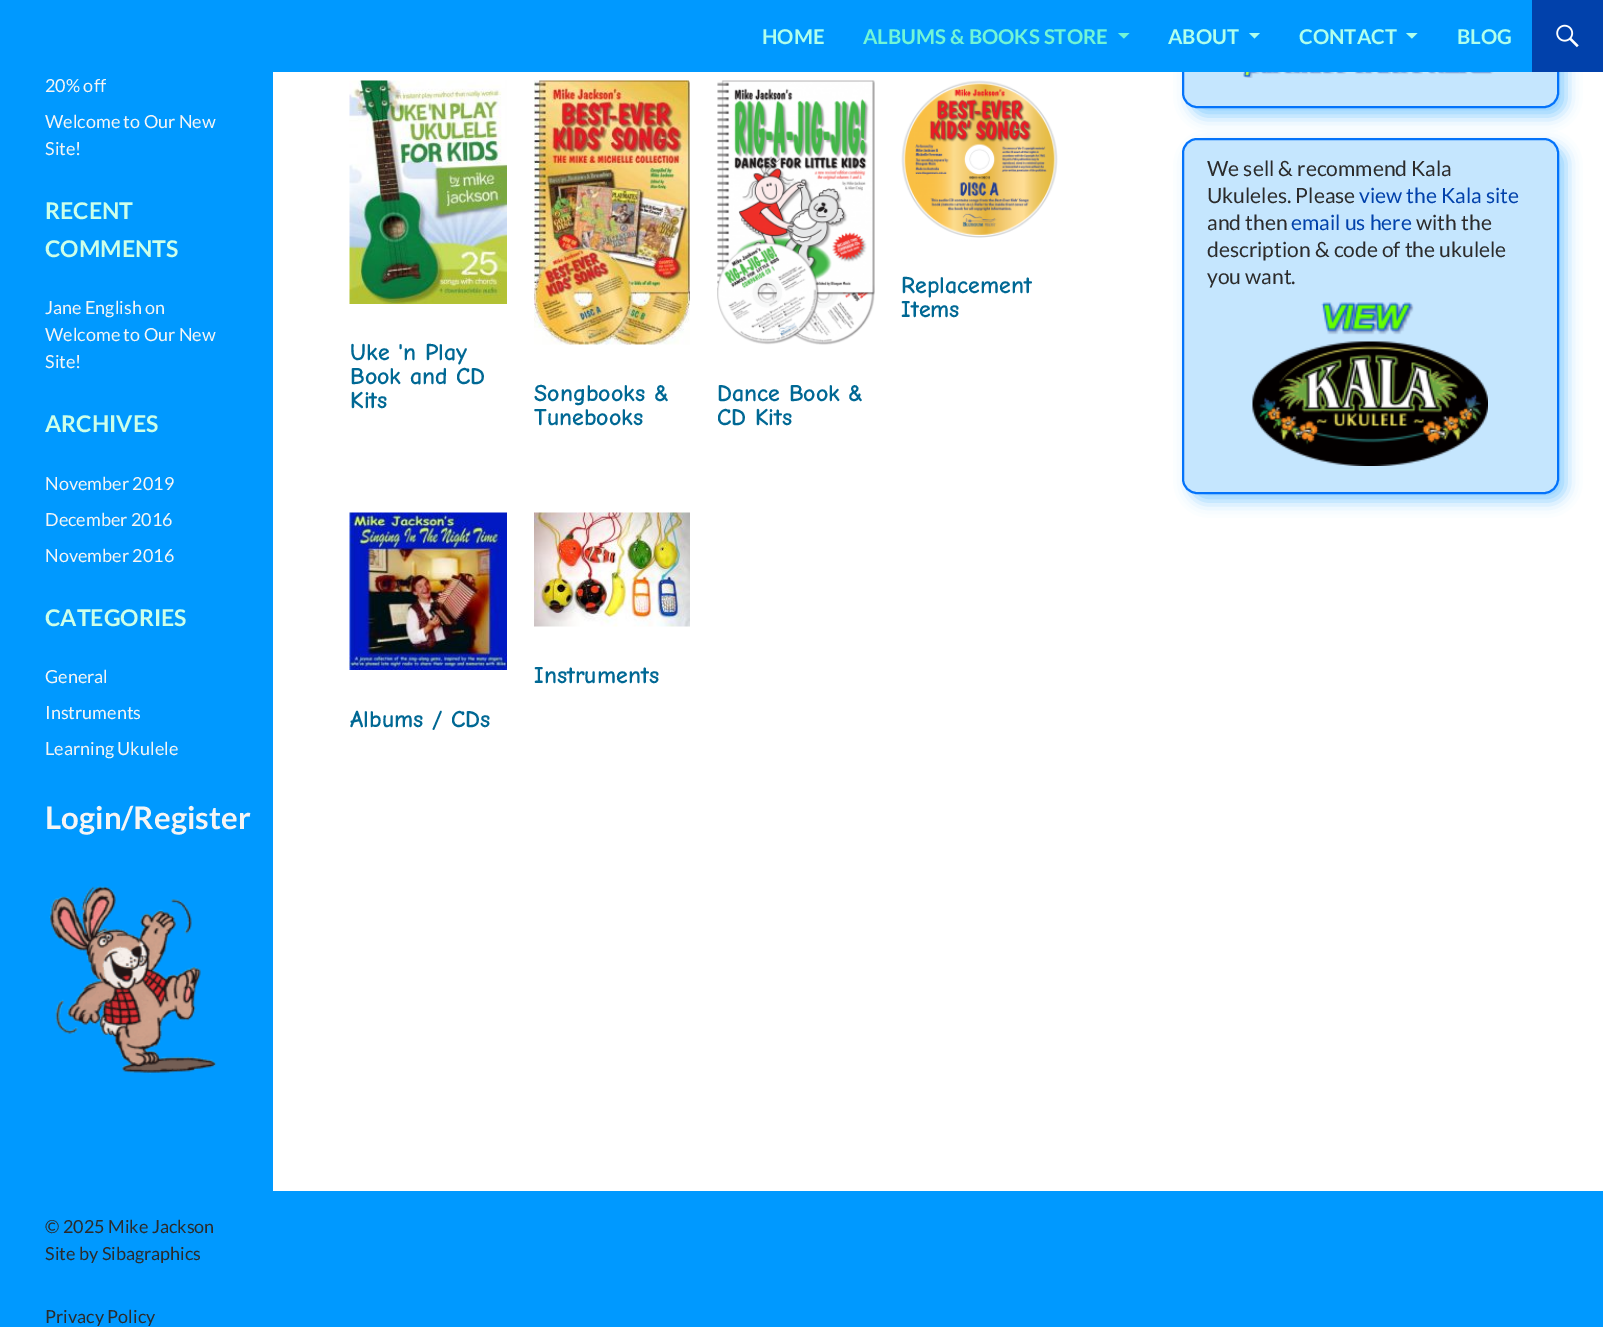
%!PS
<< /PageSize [1603 1327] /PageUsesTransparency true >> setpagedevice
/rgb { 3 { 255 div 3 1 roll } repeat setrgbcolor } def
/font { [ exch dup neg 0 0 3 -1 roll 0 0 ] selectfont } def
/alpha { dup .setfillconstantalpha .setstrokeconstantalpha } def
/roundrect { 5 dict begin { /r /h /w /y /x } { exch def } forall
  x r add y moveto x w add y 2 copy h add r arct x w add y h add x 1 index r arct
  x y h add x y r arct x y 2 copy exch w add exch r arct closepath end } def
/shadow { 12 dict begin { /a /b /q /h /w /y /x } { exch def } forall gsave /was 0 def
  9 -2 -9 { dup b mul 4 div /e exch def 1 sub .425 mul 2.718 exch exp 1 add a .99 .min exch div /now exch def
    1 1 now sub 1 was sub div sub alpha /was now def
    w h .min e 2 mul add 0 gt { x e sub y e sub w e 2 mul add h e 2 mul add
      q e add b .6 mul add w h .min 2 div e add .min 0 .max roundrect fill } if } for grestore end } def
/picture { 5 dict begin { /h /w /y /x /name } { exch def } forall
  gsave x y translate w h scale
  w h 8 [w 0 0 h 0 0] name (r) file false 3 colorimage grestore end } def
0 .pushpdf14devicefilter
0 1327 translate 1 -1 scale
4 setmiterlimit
255 255 255 rgb
0 0 1603 1327 rectfill
142 208 255 rgb
1190 -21 376 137 15 7.5 1 shadow
197 230 254 rgb
1183 -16 375 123 14 roundrect gsave fill grestore
4 115 250 rgb
2 setlinewidth
stroke
0 153 255 rgb
0 0 1532 72 rectfill
114 245 214 rgb
1118 33 moveto 1124 38.5 lineto 1129.5 33 lineto closepath fill
175 255 236 rgb
1249 33 moveto 1254.5 38.5 lineto 1260 33 lineto closepath fill
1406 33 moveto 1412 38.5 lineto 1417.5 33 lineto closepath fill
1 65 171 rgb
1532 0 71 72 rectfill
(img/1.rgb) 1556 24 23 24 picture
0 153 255 rgb
0 72 273 1119 rectfill
(img/2.rgb) 49 886 168 188 picture
(img/3.rgb) 1243 72 251 6 picture
142 208 255 rgb
1190 146 376 355 15 7.5 1 shadow
197 230 254 rgb
1183 139 375 354 14 roundrect gsave fill grestore
4 115 250 rgb
stroke
(img/4.rgb) 1252 302 236 164 picture
(img/5.rgb) 901 80 157 158 picture
(img/6.rgb) 349 80 158 224 picture
(img/7.rgb) 534 80 156 265 picture
(img/8.rgb) 717 80 158 265 picture
(img/9.rgb) 534 512 156 115 picture
(img/10.rgb) 349 512 158 158 picture
0 153 255 rgb
0 1191 1603 136 rectfill
/Lato-Bold 20.4 font
175 255 236 rgb
762 44 moveto (HOME) show
114 245 214 rgb
863 44 moveto (ALBUMS & BOOKS STORE) show
175 255 236 rgb
[
  [(ABOUT) 1168 44]
  [(CONTACT) 1299 44]
  [(BLOG) 1457 44]
] { aload pop moveto show } forall
/Lato-Regular 18 font
245 245 245 rgb
[
  [(20% off) 45 92]
  [(Welcome to Our New) 45 128]
  [(Site!) 45 155]
] { aload pop moveto show } forall
/Lato-Bold 23 font
204 255 233 rgb
45 219 moveto (RECENT) show
45 257 moveto (COMMENTS) show
/Lato-Regular 18 font
245 245 245 rgb
[
  [(Jane English on) 45 314]
  [(Welcome to Our New) 45 341]
  [(Site!) 45 368]
] { aload pop moveto show } forall
/Lato-Bold 23 font
204 255 233 rgb
45 432 moveto (ARCHIVES) show
/Lato-Regular 18 font
245 245 245 rgb
[
  [(November 2019) 45 490]
  [(December 2016) 45 526]
  [(November 2016) 45 562]
] { aload pop moveto show } forall
/Lato-Bold 23 font
204 255 233 rgb
45 626 moveto (CATEGORIES) show
/Lato-Regular 18 font
245 245 245 rgb
[
  [(General) 45 683]
  [(Instruments) 45 719]
  [(Learning Ukulele) 45 755]
] { aload pop moveto show } forall
/Lato-Bold 31.25 font
45 829 moveto (Login/Register) show
/Lato-Regular 21 font
43 43 43 rgb
1207 176 moveto (We sell & recommend Kala) show
1207 203 moveto (Ukuleles. Please) show
1 65 171 rgb
1359 203 moveto (view the Kala site) show
43 43 43 rgb
1207 230 moveto (and then) show
1 65 171 rgb
1291 230 moveto (email us here) show
43 43 43 rgb
[
  [(with the) 1416 230]
  [(description & code of the ukulele) 1207 257]
  [(you want.) 1207 284]
] { aload pop moveto show } forall
/ComicNeue-Bold 24 font
0 104 148 rgb
[
  [(Replacement) 901 293]
  [(Items) 901 317]
  [(Uke 'n Play) 350 360]
  [(Book and CD) 350 384]
  [(Kits) 350 408]
  [(Songbooks &) 534 401]
  [(Tunebooks) 534 425]
  [(Dance Book &) 717 401]
  [(CD Kits) 717 425]
  [(Instruments) 534 683]
  [(Albums / CDs) 350 727]
] { aload pop moveto show } forall
/Lato-Regular 18 font
43 43 43 rgb
[
  [(© 2025 Mike Jackson) 45 1233]
  [(Site by Sibagraphics) 45 1260]
  [(Privacy Policy) 45 1323]
] { aload pop moveto show } forall
.poppdf14devicefilter showpage
